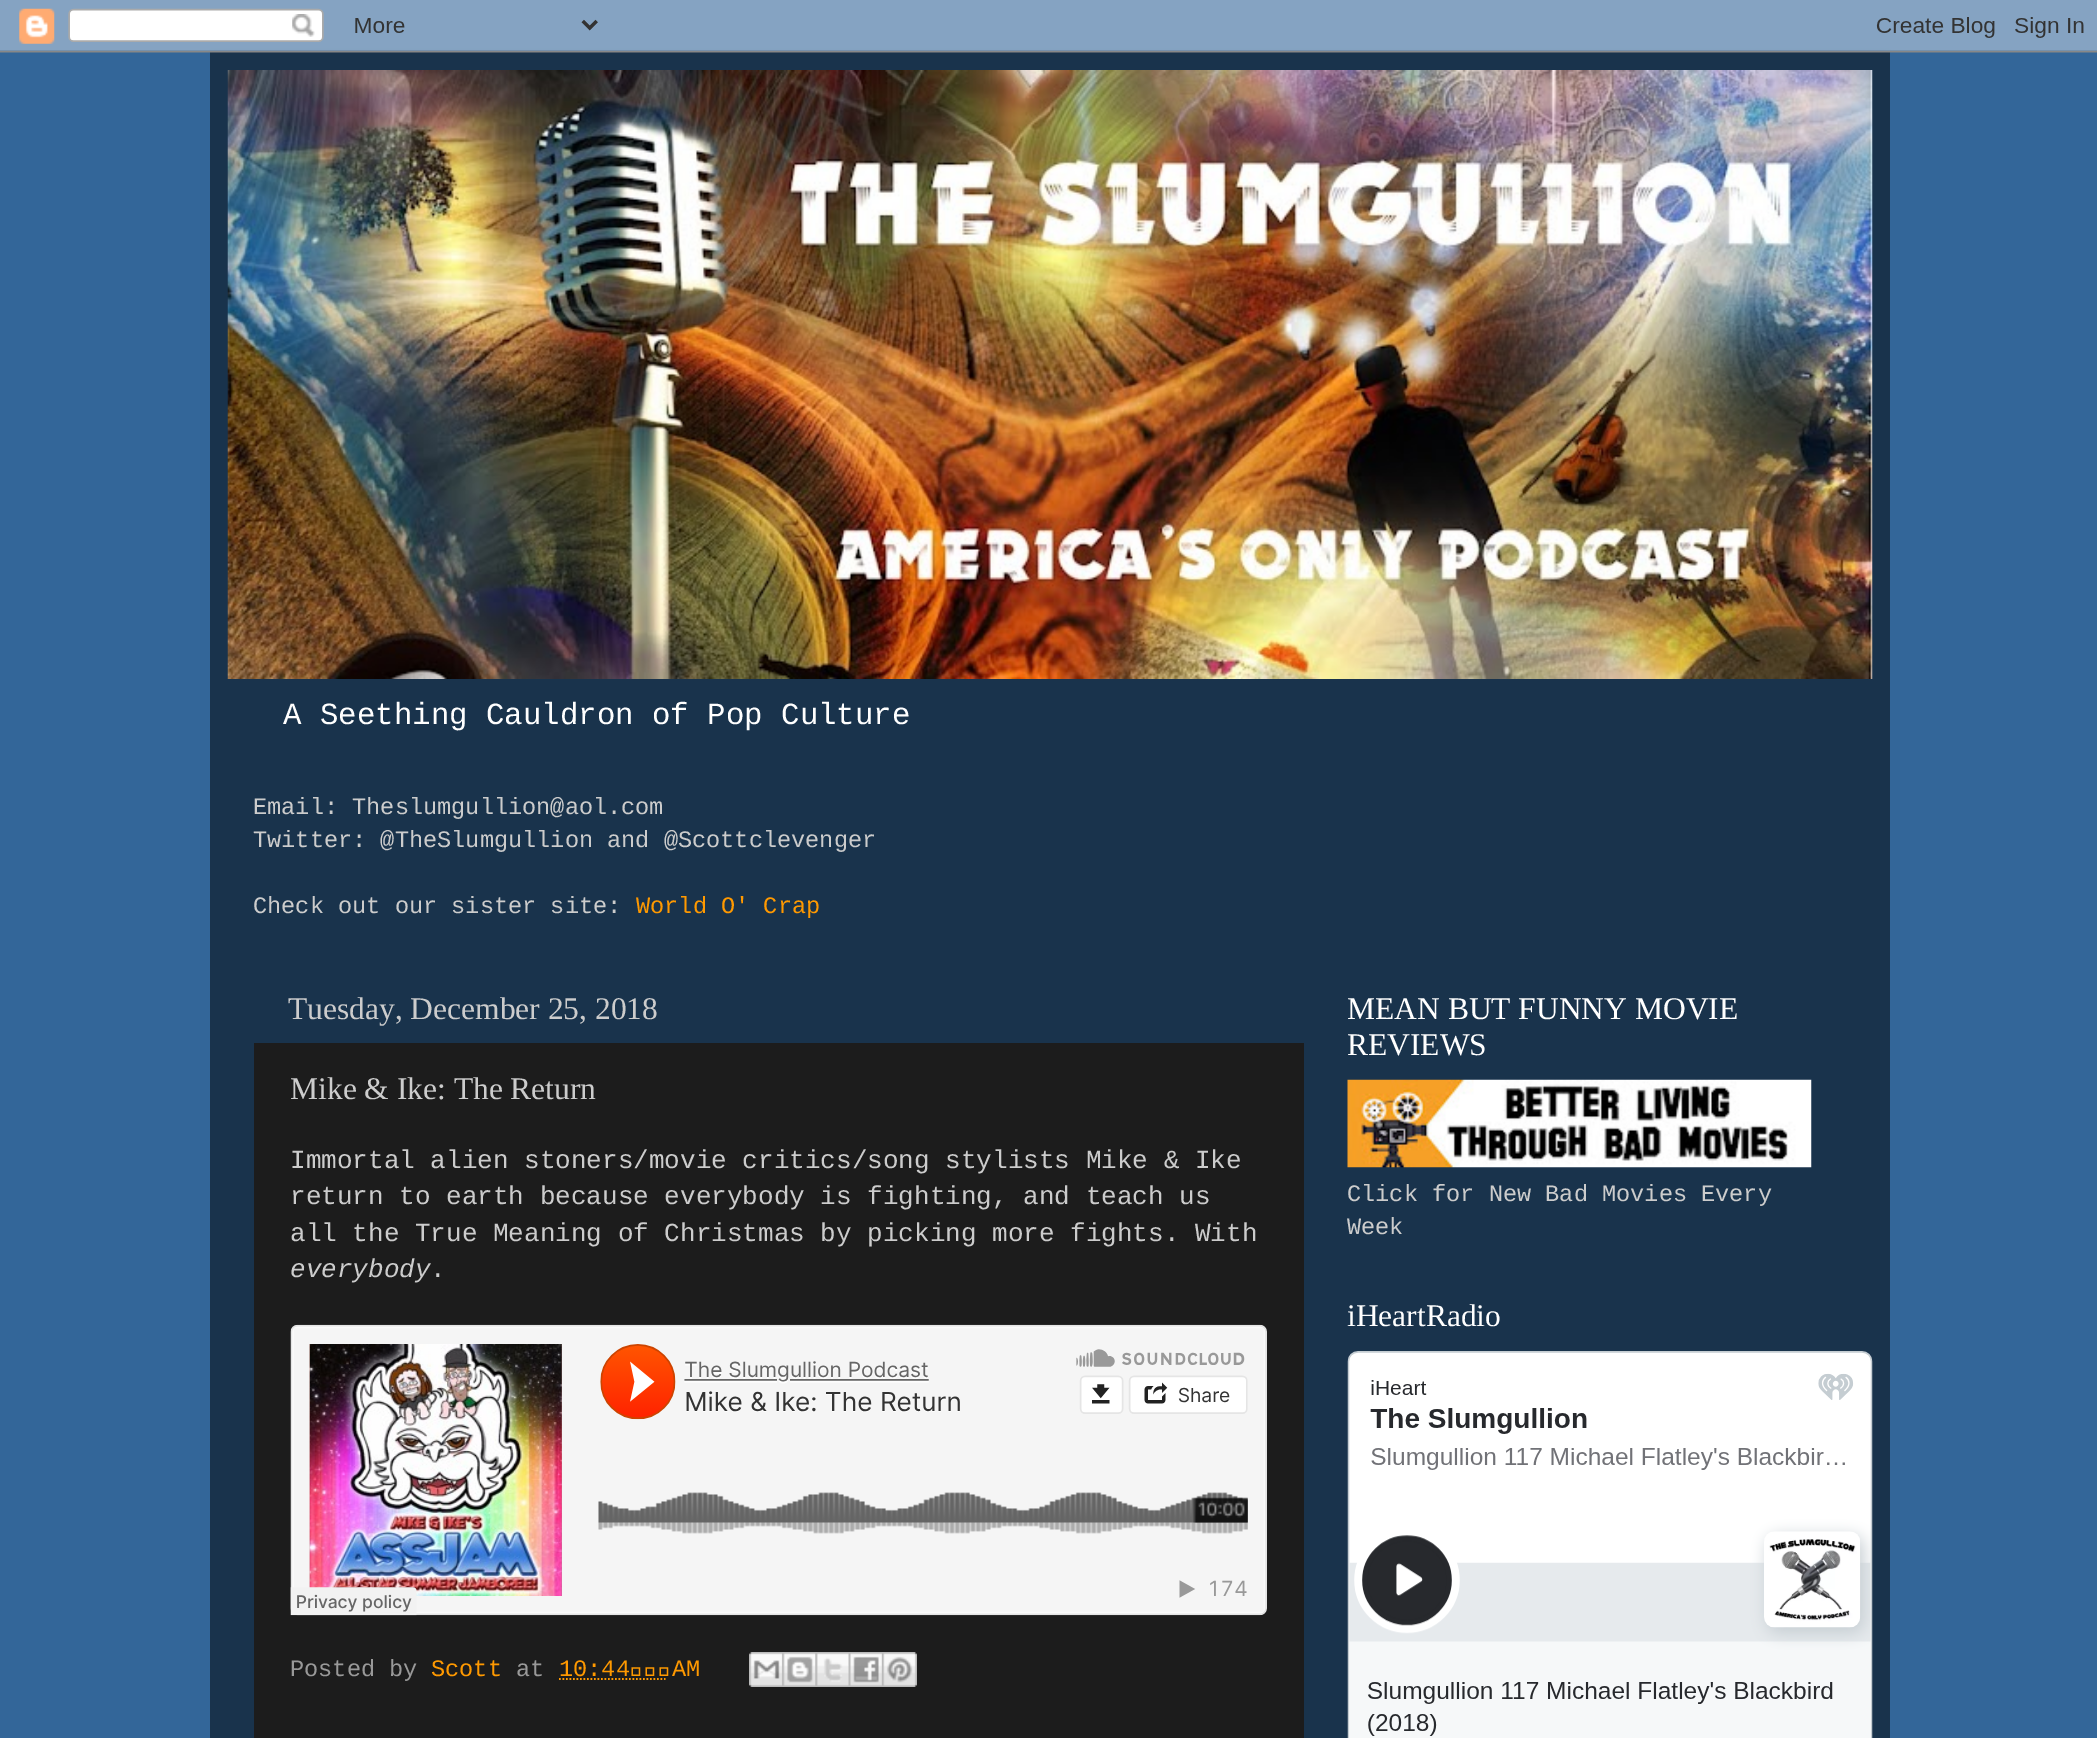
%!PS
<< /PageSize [2097 1738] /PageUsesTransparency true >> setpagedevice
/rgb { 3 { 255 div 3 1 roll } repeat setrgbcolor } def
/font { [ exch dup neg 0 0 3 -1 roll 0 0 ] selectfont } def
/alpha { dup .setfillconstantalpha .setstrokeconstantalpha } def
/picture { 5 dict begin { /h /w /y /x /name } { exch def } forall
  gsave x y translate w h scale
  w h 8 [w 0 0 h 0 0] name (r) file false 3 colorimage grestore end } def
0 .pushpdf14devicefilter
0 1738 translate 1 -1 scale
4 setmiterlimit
51 102 153 rgb
0 0 2097 1738 rectfill
0.5 alpha
0 0 0 rgb
210 52 1680 1686 rectfill
1 alpha
(img/1.rgb) 0 0 2097 53 picture
(img/2.rgb) 227 70 1646 609 picture
28 28 28 rgb
254 1043 1050 695 rectfill
(img/3.rgb) 290 1324 977 292 picture
255 153 0 rgb
1.8 setlinewidth
[1.75 1.75] 0 setdash
559 1679 moveto 665.5 1679 lineto stroke
(img/4.rgb) 749 1652 34 35 picture
(img/5.rgb) 782 1652 34 35 picture
(img/6.rgb) 815 1652 34 35 picture
(img/7.rgb) 848 1652 34 35 picture
(img/8.rgb) 882 1652 35 35 picture
(img/9.rgb) 1347 1079 465 89 picture
(img/10.rgb) 1347 1351 526 387 picture
/LiberationMono-Regular 30.75 font
255 255 255 rgb
283 724 moveto (A Seething Cauldron of Pop Culture) show
/LiberationMono-Regular 23.6 font
204 204 204 rgb
[
  [(Email: Theslumgullion@aol.com) 253 814]
  [(Twitter: @TheSlumgullion and @Scottclevenger) 253 847]
  [(Check out our sister site:) 253 913]
] { aload pop moveto show } forall
255 153 0 rgb
636 913 moveto (World O' Crap) show
/LiberationSerif-Regular 31.5 font
204 204 204 rgb
288 1019 moveto (Tuesday, December 25, 2018) show
290 1099 moveto (Mike & Ike: The Return) show
/LiberationMono-Regular 26 font
[
  [(Immortal alien stoners/movie critics/song stylists Mike & Ike) 290 1168]
  [(return to earth because everybody is fighting, and teach us) 290 1204]
  [(all the True Meaning of Christmas by picking more fights. With) 290 1241]
] { aload pop moveto show } forall
/LiberationMono-Italic 26 font
290 1277 moveto (everybody) show
/LiberationMono-Regular 26 font
430 1277 moveto (.) show
/LiberationMono-Regular 23.6 font
153 153 153 rgb
290 1676 moveto (Posted by) show
255 153 0 rgb
431 1676 moveto (Scott) show
153 153 153 rgb
516 1676 moveto (at) show
255 153 0 rgb
559 1676 moveto (10:44 AM) show
/LiberationSerif-Regular 31.5 font
255 255 255 rgb
1347 1019 moveto (MEAN BUT FUNNY MOVIE) show
1347 1055 moveto (REVIEWS) show
/LiberationMono-Regular 23.6 font
204 204 204 rgb
1347 1201 moveto (Click for New Bad Movies Every) show
1347 1234 moveto (Week) show
/LiberationSerif-Regular 31.5 font
255 255 255 rgb
1347 1326 moveto (iHeartRadio) show
.poppdf14devicefilter showpage
